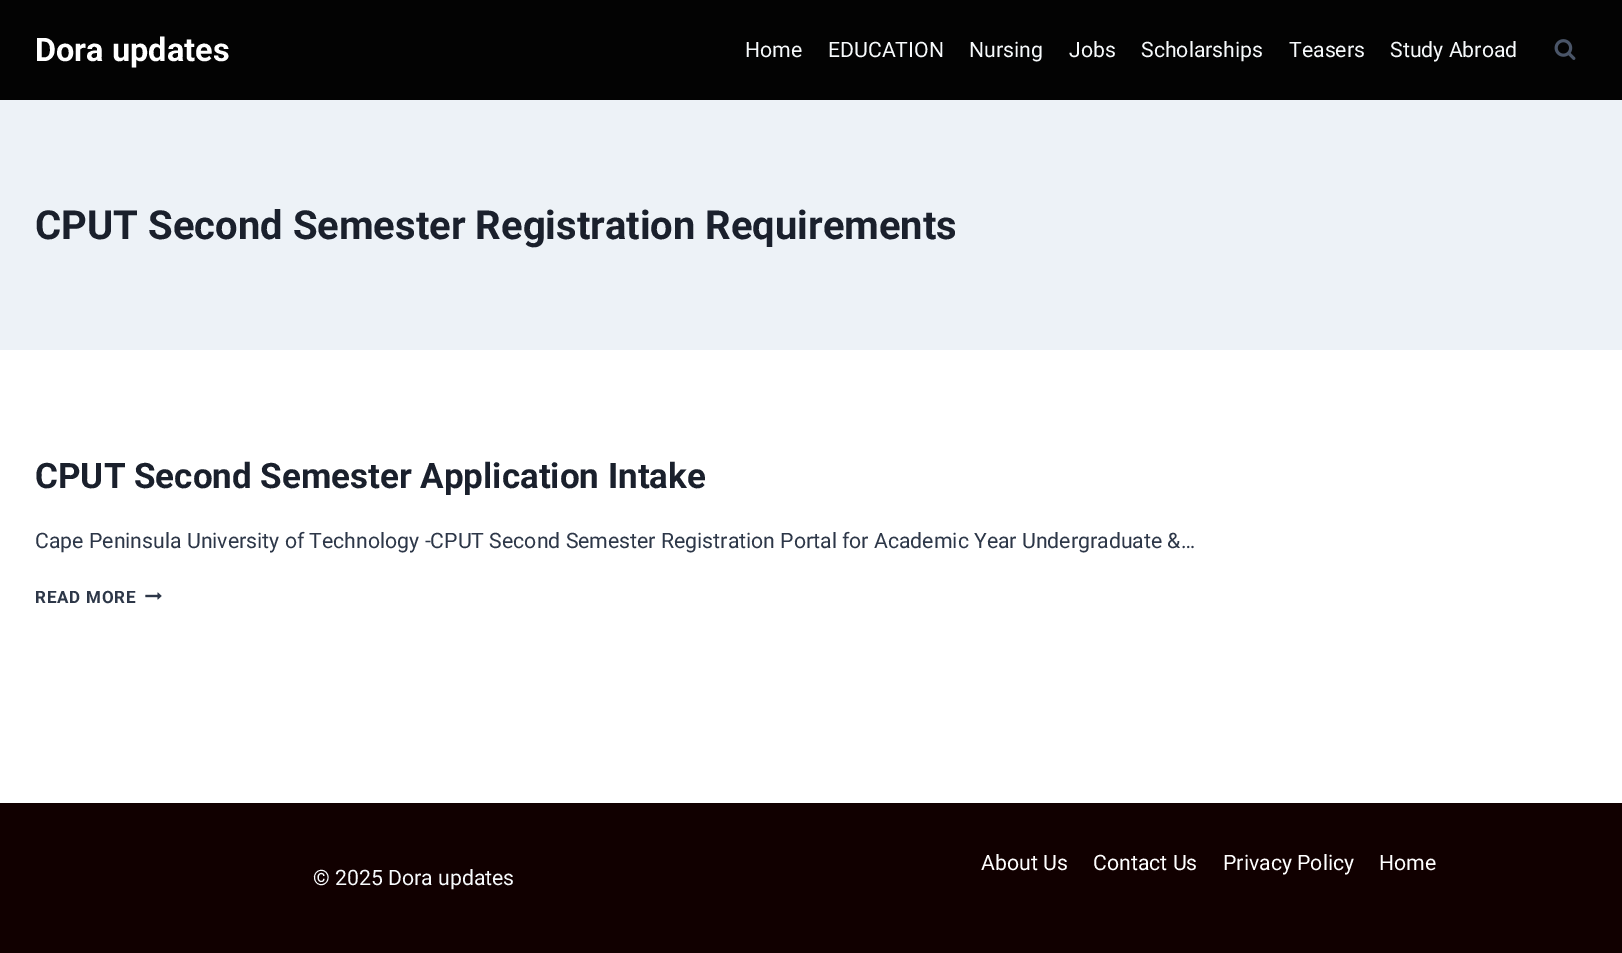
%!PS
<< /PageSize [1622 953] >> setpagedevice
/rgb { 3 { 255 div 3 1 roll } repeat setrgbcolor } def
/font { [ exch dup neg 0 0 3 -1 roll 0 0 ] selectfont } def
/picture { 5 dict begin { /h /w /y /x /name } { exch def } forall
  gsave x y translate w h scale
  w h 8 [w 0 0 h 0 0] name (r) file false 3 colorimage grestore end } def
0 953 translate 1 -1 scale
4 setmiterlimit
255 255 255 rgb
0 0 1622 953 rectfill
3 3 3 rgb
0 0 1622 100 rectfill
(img/1.rgb) 1554 39 22 21 picture
237 242 247 rgb
0 100 1622 250 rectfill
(img/2.rgb) 145 592 17 8 picture
17 0 0 rgb
0 803 1622 150 rectfill
/Roboto-Bold 32.5 font
255 255 255 rgb
35 61 moveto (Dora updates) show
/Roboto-Regular 21.25 font
247 250 252 rgb
[
  [(Home) 745 57]
  [(EDUCATION) 828 57]
  [(Nursing) 969 57]
  [(Jobs) 1069 57]
  [(Scholarships) 1141 57]
  [(Teasers) 1289 57]
  [(Study Abroad) 1390 57]
] { aload pop moveto show } forall
/Roboto-Bold 40 font
26 32 44 rgb
35 239 moveto (CPUT Second Semester Registration Requirements) show
/Roboto-Bold 35 font
35 488 moveto (CPUT Second Semester Application Intake) show
/Roboto-Regular 21.25 font
45 55 72 rgb
35 548 moveto (Cape Peninsula University of Technology -CPUT Second Semester Registration Portal for Academic Year Undergraduate &…) show
/Roboto-Bold 17 font
35 603 moveto 0.75 0 (READ MORE) ashow
/Roboto-Regular 21.25 font
255 255 255 rgb
[
  [(About Us) 981 870]
  [(Contact Us) 1093 870]
  [(Privacy Policy) 1223 870]
  [(Home) 1379 870]
] { aload pop moveto show } forall
247 250 252 rgb
313 885 moveto (© 2025 Dora updates) show
showpage
